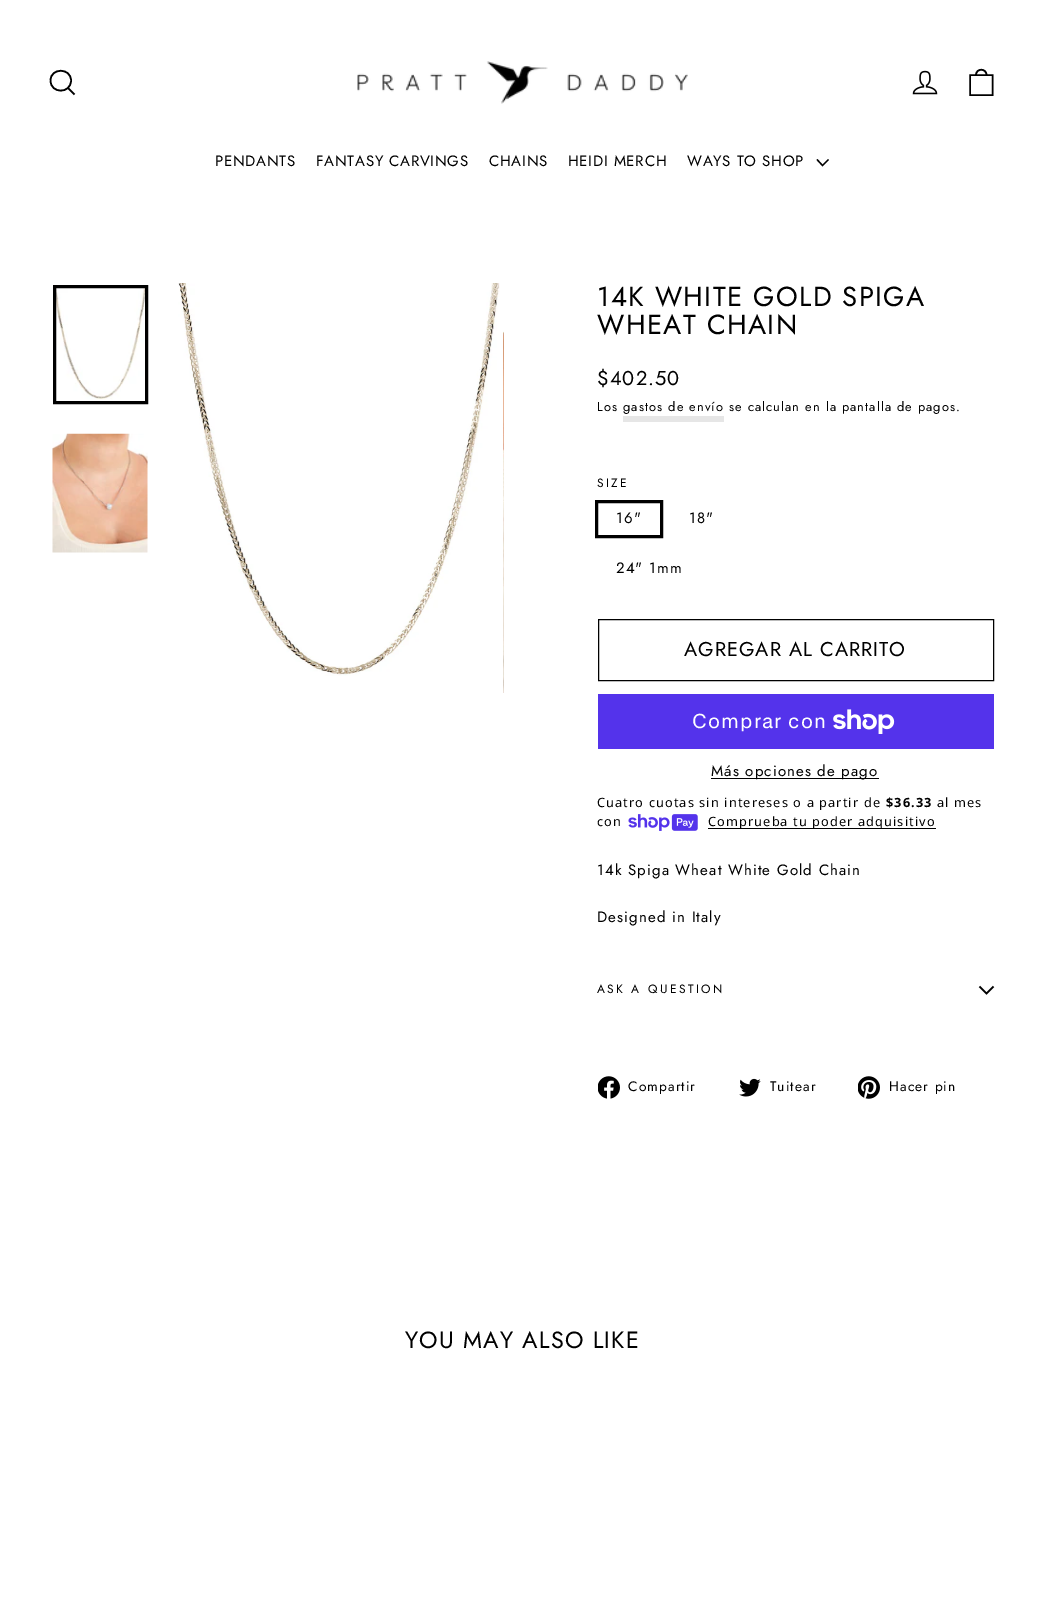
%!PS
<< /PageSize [1043 1600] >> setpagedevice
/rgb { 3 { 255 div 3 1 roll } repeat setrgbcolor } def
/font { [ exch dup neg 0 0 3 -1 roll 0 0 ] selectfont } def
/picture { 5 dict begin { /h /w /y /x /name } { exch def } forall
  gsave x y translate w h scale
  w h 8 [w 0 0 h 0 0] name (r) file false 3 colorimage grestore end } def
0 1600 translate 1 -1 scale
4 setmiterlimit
255 255 255 rgb
0 0 1043 1600 rectfill
0 0 0 rgb
1.6 setlinewidth
71 80.5 moveto 71 94 50.5 94 50.5 80.5 curveto 50.5 67.5 71 67.5 71 80.5 curveto closepath 74.5 94.5 moveto 68 88 lineto stroke
(img/1.rgb) 357 61 331 43 picture
(img/2.rgb) 912 70 26 25 picture
970 75 moveto 992.5 75 lineto 992.5 95 lineto 970 95 lineto closepath 976 75 moveto 976 68 986.5 68 986.5 75 curveto stroke
1.3 setlinewidth
817 159.5 moveto 822.5 165.5 lineto 828.5 159.5 lineto stroke
(img/3.rgb) 56 288 89 112 picture
3 setlinewidth
54.5 286.5 92 116 rectstroke
(img/4.rgb) 52 433 96 120 picture
(img/5.rgb) 178 283 322 393 picture
(img/6.rgb) 503 331 1 362 picture
230 230 230 rgb
623 416 101 6 rectfill
0 0 0 rgb
596.5 501.5 65 35 rectstroke
1 setlinewidth
598.5 619.5 395 61 rectstroke
84 51 235 rgb
598 694 396 55 rectfill
(img/7.rgb) 833 709 62 25 picture
0 0 0 rgb
711 778 168 1 rectfill
(img/8.rgb) 628 814 70 17 picture
708 828 228 1 rectfill
1.6 setlinewidth
979.5 986.5 moveto 986.5 993.5 lineto 993.5 986.5 lineto stroke
(img/9.rgb) 598 1076 22 23 picture
(img/10.rgb) 739 1078 22 19 picture
(img/11.rgb) 858 1076 22 23 picture
/Jost-Regular 15 font
215 166 moveto 0.75 0 (PENDANTS) ashow
316 166 moveto 0.75 0 (FANTASY CARVINGS) ashow
489 166 moveto 0.75 0 (CHAINS) ashow
568 166 moveto 0.75 0 (HEIDI MERCH) ashow
687 166 moveto 0.75 0 (WAYS TO SHOP) ashow
/Jost-Regular 27.5 font
597 306 moveto 1.4 0 (14K WHITE GOLD SPIGA) ashow
597 334 moveto 1.4 0 (WHEAT CHAIN) ashow
/Jost-Regular 20 font
597 385 moveto 1.1 0 ($402.50) ashow
/Jost-Regular 12.75 font
597 411 moveto 1.1 0 (Los gastos de envío) ashow
729 411 moveto 1.1 0 (se calculan en la pantalla de pagos.) ashow
/Jost-Regular 12 font
597 487 moveto 2.4 0 (SIZE) ashow
/Jost-Regular 15 font
616 523 moveto 1.1 0 (16") ashow
689 523 moveto 1.1 0 (18") ashow
616 573 moveto 1.1 0 (24" 1mm) ashow
/Jost-Regular 20 font
684 656 moveto 1 0 (AGREGAR AL CARRITO) ashow
/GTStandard-Regular 20 font
255 255 255 rgb
692 728 moveto 1.1 0 (Comprar con) ashow
/Jost-Regular 15 font
0 0 0 rgb
711 776 moveto 1.1 0 (Más opciones de pago) ashow
/NotoSans-Regular 12.75 font
597 807 moveto 1.1 0 (Cuatro cuotas sin intereses o a partir de) ashow
/NotoSans-Bold 12.75 font
886 807 moveto 1.1 0 ($36.33) ashow
/NotoSans-Regular 12.75 font
937 807 moveto 1.1 0 (al mes) ashow
597 826 moveto 1.1 0 (con) ashow
708 826 moveto 1.1 0 (Comprueba tu poder adquisitivo) ashow
/Jost-Regular 15 font
597 875 moveto 1.1 0 (14k Spiga Wheat White Gold Chain) ashow
597 922 moveto 1.1 0 (Designed in Italy) ashow
/Jost-Regular 12 font
597 993 moveto 2.4 0 (ASK A QUESTION) ashow
/Jost-Regular 13.75 font
628 1091 moveto 1.1 0 (Compartir) ashow
770 1091 moveto 1.1 0 (Tuitear) ashow
889 1091 moveto 1.1 0 (Hacer pin) ashow
/Jost-Regular 23.4 font
405 1348 moveto 1.2 0 (YOU MAY ALSO LIKE) ashow
showpage
